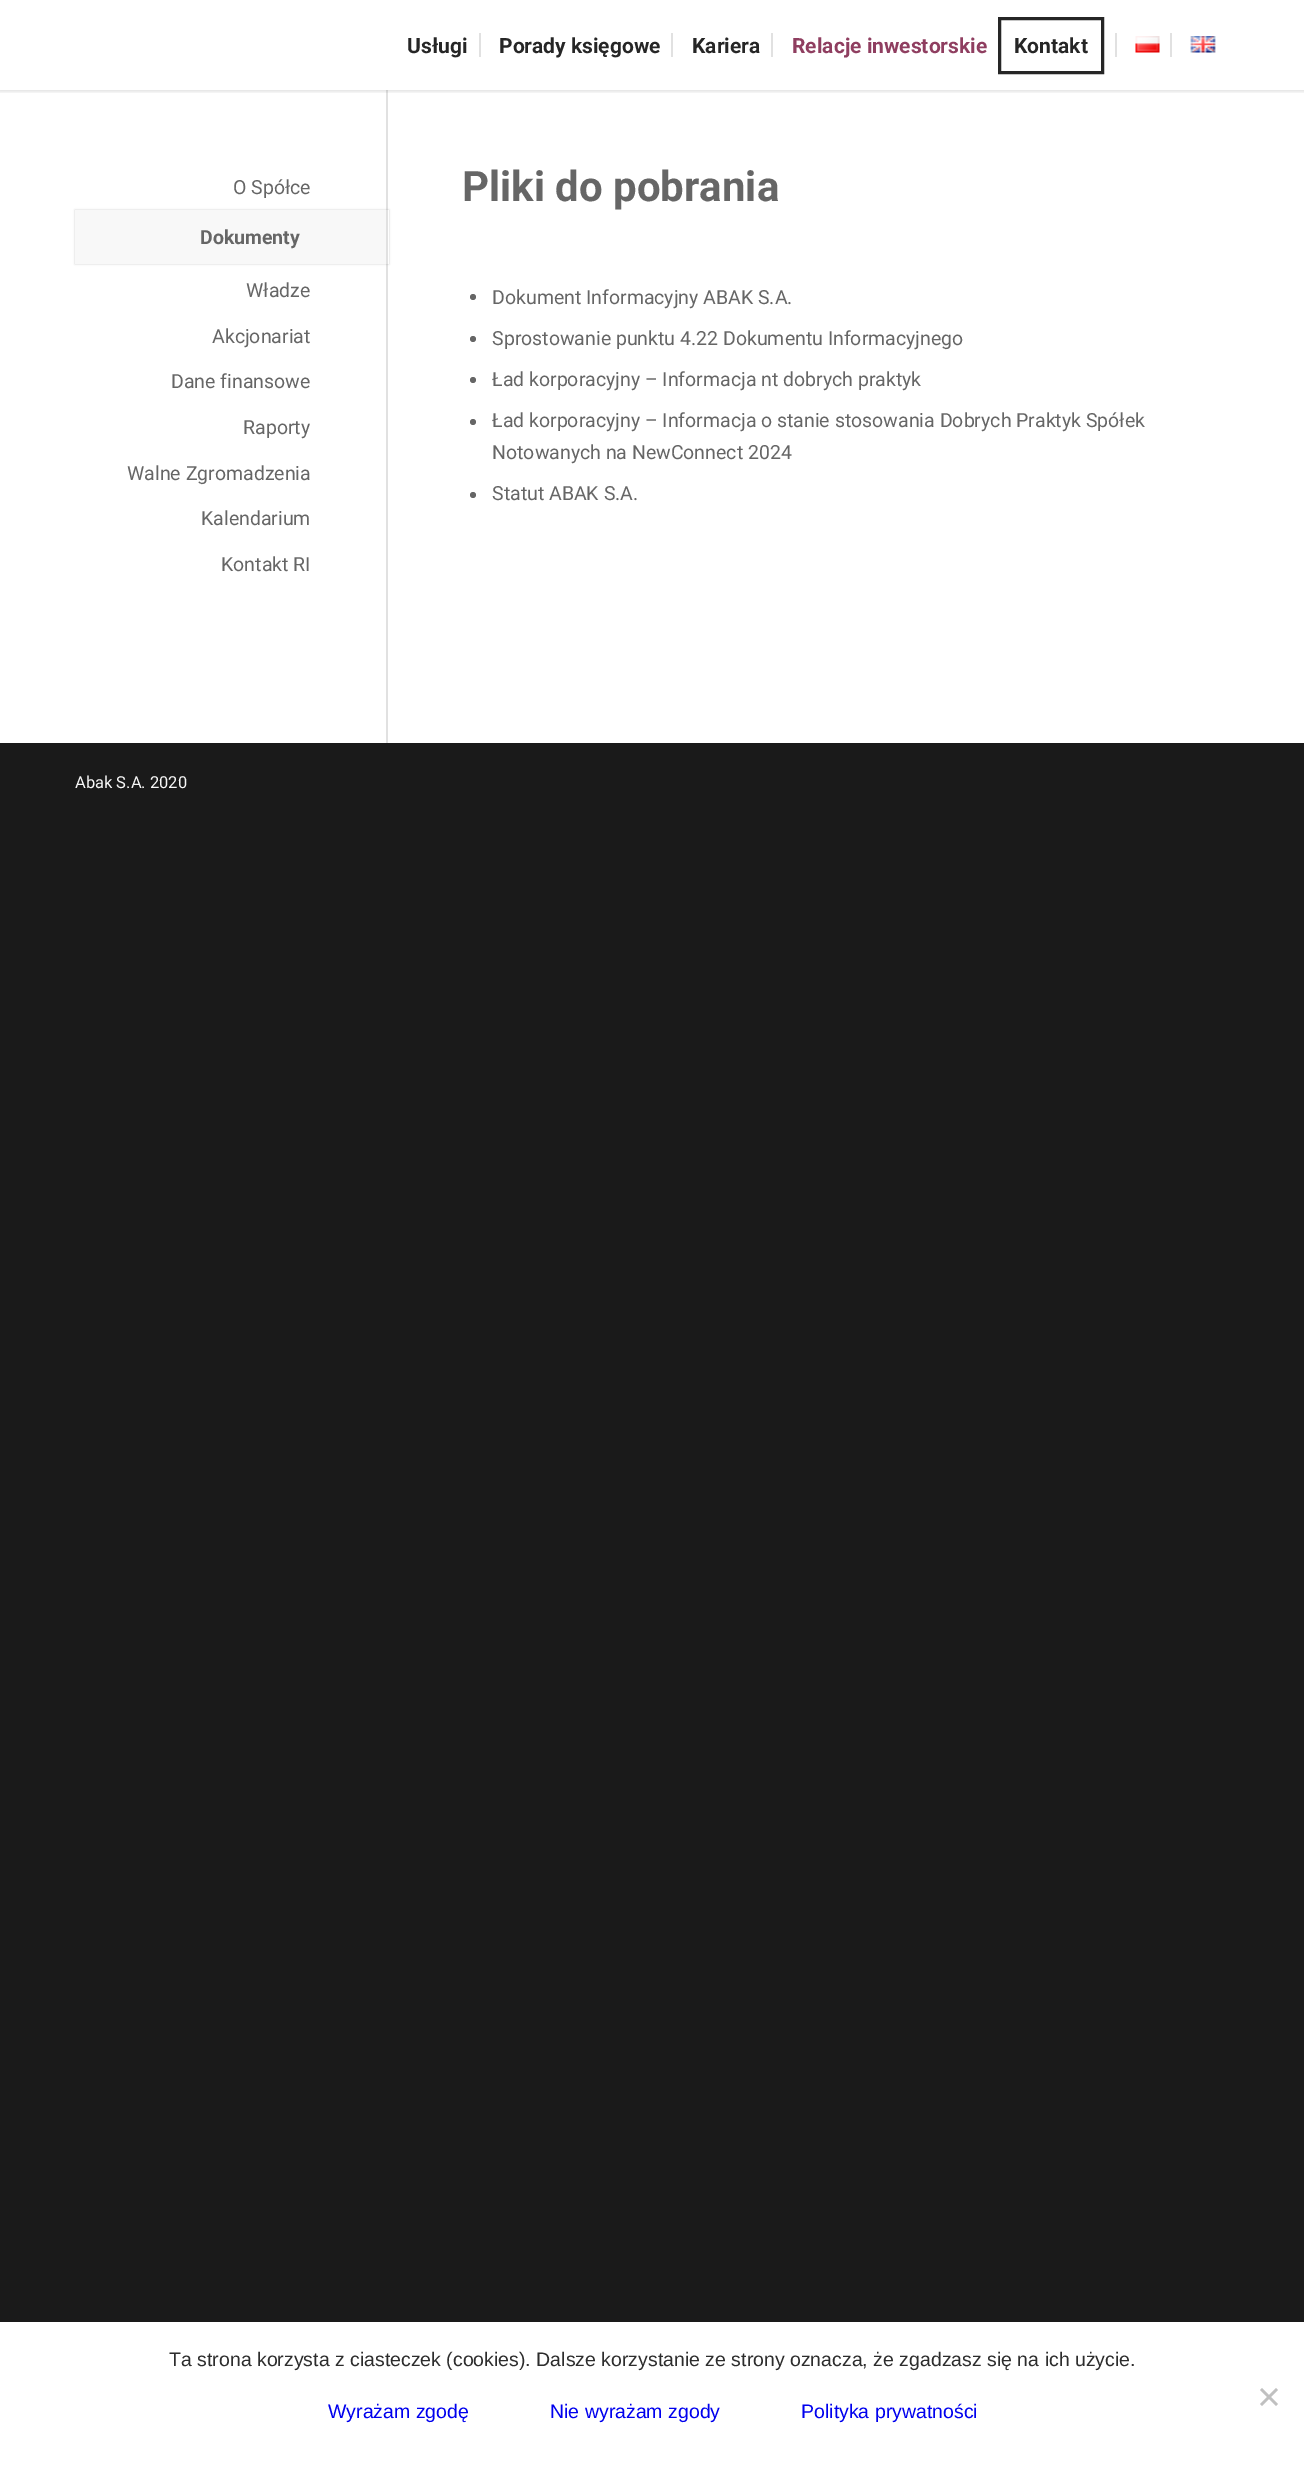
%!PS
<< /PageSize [1304 2470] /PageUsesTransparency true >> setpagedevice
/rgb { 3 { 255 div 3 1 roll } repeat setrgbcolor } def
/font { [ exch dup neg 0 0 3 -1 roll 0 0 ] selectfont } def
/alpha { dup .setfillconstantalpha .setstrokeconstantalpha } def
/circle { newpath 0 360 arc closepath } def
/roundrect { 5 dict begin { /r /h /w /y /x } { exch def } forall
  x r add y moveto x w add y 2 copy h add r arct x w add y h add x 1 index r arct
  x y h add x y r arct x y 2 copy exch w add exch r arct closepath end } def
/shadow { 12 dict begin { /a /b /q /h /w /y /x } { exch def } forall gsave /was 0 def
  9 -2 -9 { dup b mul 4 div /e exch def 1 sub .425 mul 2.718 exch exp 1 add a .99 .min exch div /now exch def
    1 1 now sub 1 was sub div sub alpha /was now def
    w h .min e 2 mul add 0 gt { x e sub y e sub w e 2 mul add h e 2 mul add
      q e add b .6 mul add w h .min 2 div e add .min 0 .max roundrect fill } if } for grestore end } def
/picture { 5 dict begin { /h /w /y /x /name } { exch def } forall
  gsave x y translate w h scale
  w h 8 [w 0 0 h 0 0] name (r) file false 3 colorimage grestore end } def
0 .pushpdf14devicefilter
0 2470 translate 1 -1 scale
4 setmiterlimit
26 26 26 rgb
0 0 1304 2470 rectfill
255 255 255 rgb
0 0 1304 743 rectfill
225 225 225 rgb
386 90 2 654 rectfill
gsave
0 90 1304 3 rectclip
0 0 0 rgb
-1 -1 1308 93 0 1.5 0.1 shadow
grestore
[
  [479 33 2 24 225 225 225]
  [671 33 2 24 225 225 225]
  [771 33 2 24 225 225 225]
] { aload pop rgb rectfill } forall
38 38 38 rgb
3 setlinewidth
999.5 18.5 103 54 rectstroke
225 225 225 rgb
1115 33 2 24 rectfill
(img/1.rgb) 1135 36 25 17 picture
1170 33 2 24 rectfill
(img/2.rgb) 1190 36 26 17 picture
gsave
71 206 moveto 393 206 lineto 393 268 lineto 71 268 lineto closepath 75 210 moveto 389 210 lineto 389 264 lineto 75 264 lineto closepath eoclip newpath
0 0 0 rgb
75 210 314 54 0 1 0.2 shadow
grestore
248 248 248 rgb
75 210 311 54 rectfill
102 102 102 rgb
473 297 3 circle fill
473 339 3 circle fill
473 380 3 circle fill
473 422 3 circle fill
473 495 3 circle fill
26 26 26 rgb
386 743 2 1 rectfill
255 255 255 rgb
0 2322 1304 148 rectfill
192 192 192 rgb
1276 2388 moveto 1278 2390 lineto 1262 2406 lineto 1260 2404 lineto closepath fill
1260 2390 moveto 1262 2388 lineto 1278 2404 lineto 1276 2406 lineto closepath fill
/Roboto-Bold 21 font
38 38 38 rgb
[
  [(Usługi) 407 53]
  [(Porady księgowe) 499 53]
  [(Kariera) 692 53]
] { aload pop moveto show } forall
143 62 96 rgb
792 53 moveto (Relacje inwestorskie) show
38 38 38 rgb
1014 53 moveto (Kontakt) show
/Roboto-Regular 19.5 font
102 102 102 rgb
233 194 moveto (O Spółce) show
/Roboto-Bold 19.5 font
200 244 moveto (Dokumenty) show
/Roboto-Regular 19.5 font
[
  [(Władze) 246 297]
  [(Akcjonariat) 212 343]
  [(Dane finansowe) 171 388]
  [(Raporty) 243 434]
  [(Walne Zgromadzenia) 127 480]
  [(Kalendarium) 201 525]
  [(Kontakt RI) 221 571]
] { aload pop moveto show } forall
/Roboto-Bold 42 font
462 201 moveto (Pliki do pobrania) show
/Roboto-Regular 19.5 font
[
  [(Dokument Informacyjny ABAK S.A.) 492 304]
  [(Sprostowanie punktu 4.22 Dokumentu Informacyjnego) 492 345]
  [(Ład korporacyjny – Informacja nt dobrych praktyk) 492 386]
  [(Ład korporacyjny – Informacja o stanie stosowania Dobrych Praktyk Spółek) 492 427]
  [(Notowanych na NewConnect 2024) 492 459]
  [(Statut ABAK S.A.) 492 500]
] { aload pop moveto show } forall
/Roboto-Regular 16.5 font
248 248 248 rgb
75 788 moveto (Abak S.A. 2020) show
/LiberationSans-Regular 19.5 font
45 45 45 rgb
169 2366 moveto (Ta strona korzysta z ciasteczek \(cookies\). Dalsze korzystanie ze strony oznacza, że zgadzasz się na ich użycie.) show
0 0 238 rgb
[
  [(Wyrażam zgodę) 328 2418]
  [(Nie wyrażam zgody) 550 2418]
  [(Polityka prywatności) 801 2418]
] { aload pop moveto show } forall
.poppdf14devicefilter showpage
